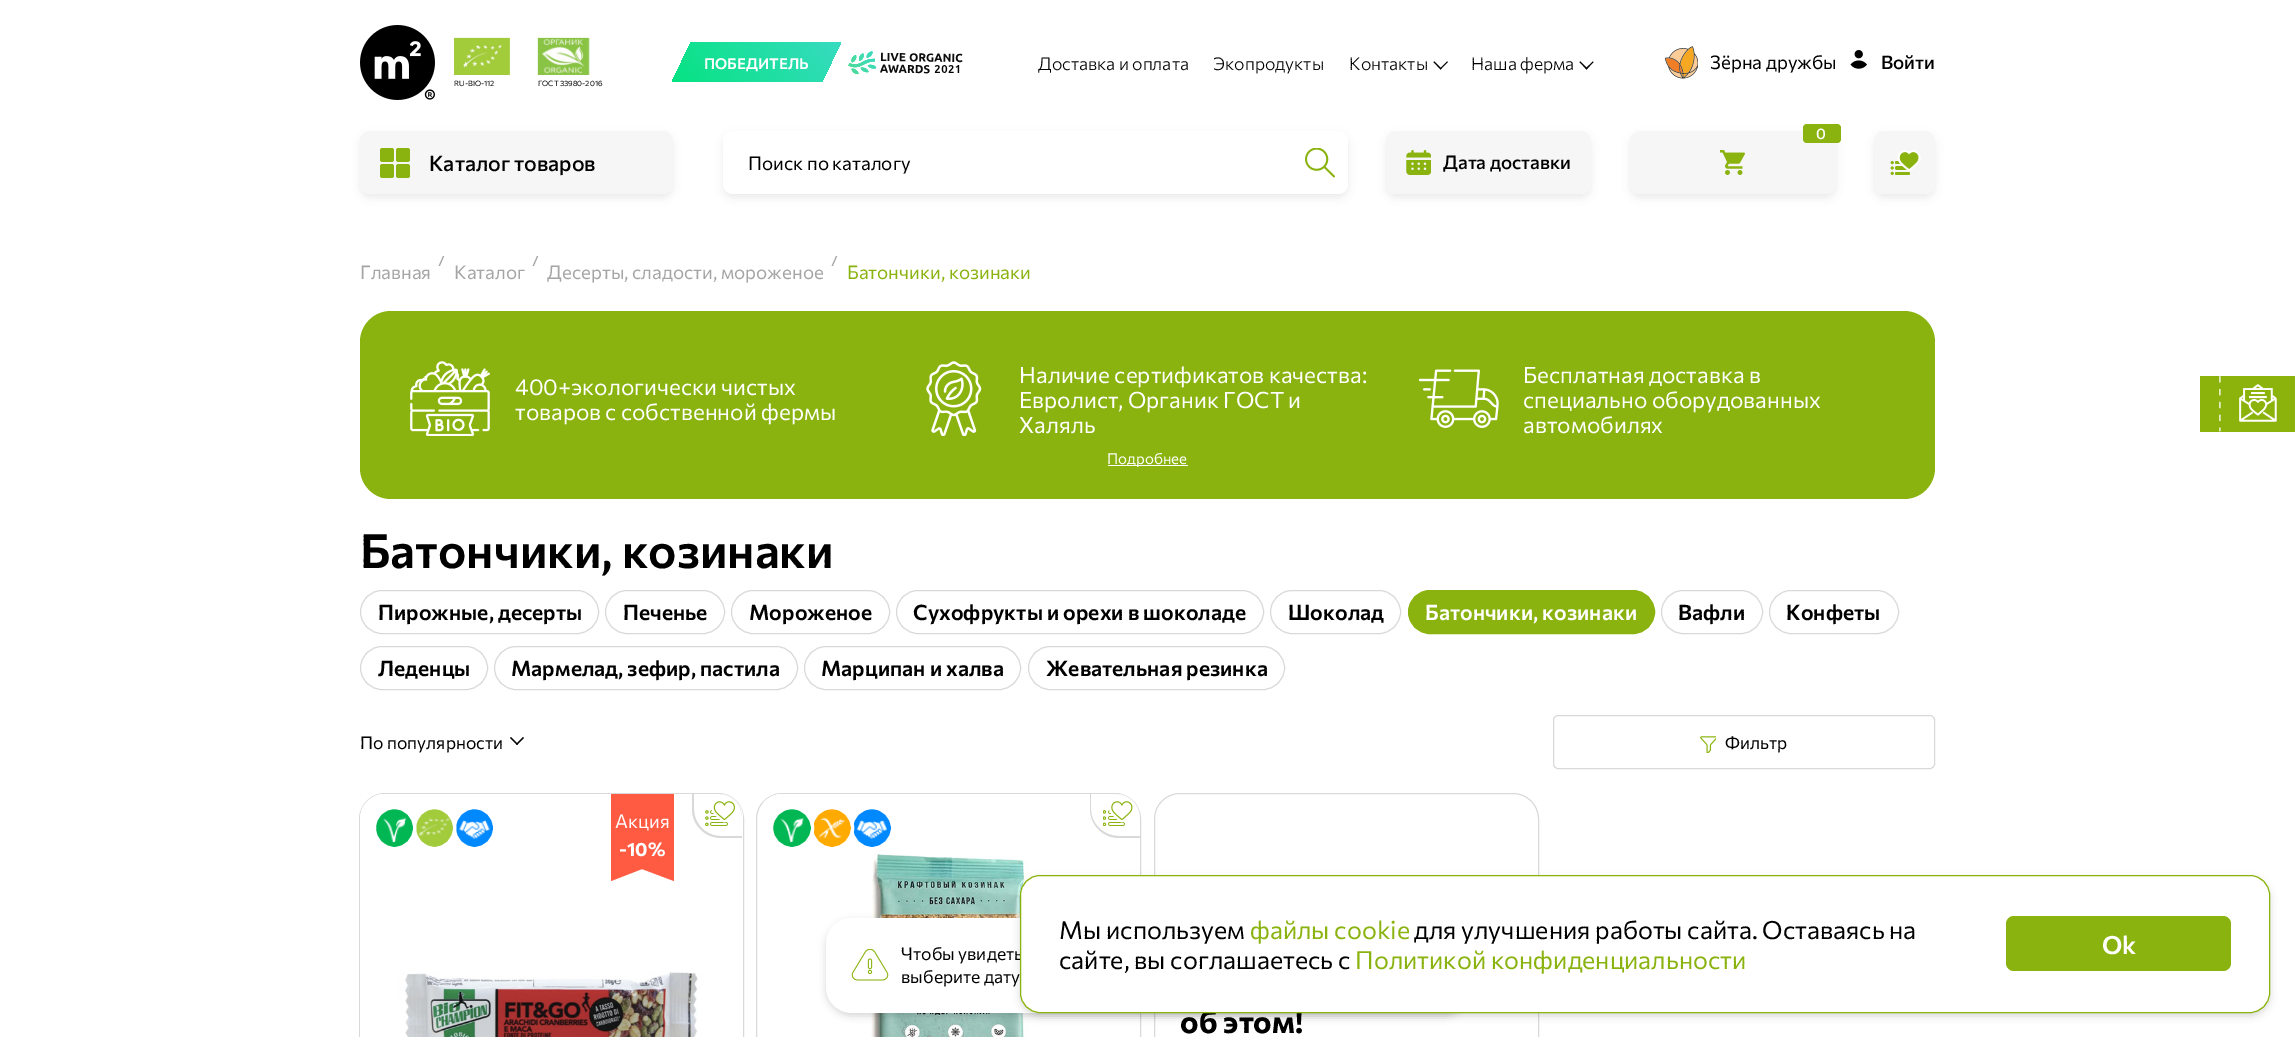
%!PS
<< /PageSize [2295 1037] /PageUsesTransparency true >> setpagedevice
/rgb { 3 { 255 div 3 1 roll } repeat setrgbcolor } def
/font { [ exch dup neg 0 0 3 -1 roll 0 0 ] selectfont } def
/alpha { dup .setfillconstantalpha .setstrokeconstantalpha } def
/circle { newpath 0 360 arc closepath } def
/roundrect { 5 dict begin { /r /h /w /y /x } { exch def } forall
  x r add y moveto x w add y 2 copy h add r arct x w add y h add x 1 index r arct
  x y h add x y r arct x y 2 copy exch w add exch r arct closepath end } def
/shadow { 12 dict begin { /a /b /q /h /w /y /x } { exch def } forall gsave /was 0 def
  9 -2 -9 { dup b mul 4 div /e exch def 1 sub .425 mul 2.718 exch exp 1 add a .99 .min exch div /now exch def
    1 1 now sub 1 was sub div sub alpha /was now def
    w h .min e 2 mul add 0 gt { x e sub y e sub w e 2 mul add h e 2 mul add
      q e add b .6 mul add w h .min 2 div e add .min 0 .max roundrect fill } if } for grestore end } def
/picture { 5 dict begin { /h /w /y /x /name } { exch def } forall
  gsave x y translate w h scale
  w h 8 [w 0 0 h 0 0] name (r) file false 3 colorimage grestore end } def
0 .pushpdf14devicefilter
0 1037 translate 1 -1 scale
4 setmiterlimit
255 255 255 rgb
0 0 2295 1037 rectfill
gsave 691 42 moveto 841 42 lineto 822 82 lineto 672 82 lineto closepath clip newpath
<< /ShadingType 2 /ColorSpace /DeviceRGB /Coords [698 111 815 14] /Extend [true true] /Function << /FunctionType 2 /Domain [0 1] /C0 [0.024 0.89 0.51] /C1 [0.216 0.859 0.753] /N 1 >> >> shfill grestore
(img/1.rgb) 848 51 115 24 picture
0 0 0 rgb
1440 68.5 moveto 1447 61.5 lineto 1448 62 lineto 1440.5 69.5 lineto closepath fill
1433.5 62 moveto 1434.5 61.5 lineto 1441.5 68.5 lineto 1440.5 69.5 lineto closepath fill
1585.5 68.5 moveto 1593 61.5 lineto 1593.5 62 lineto 1586.5 69.5 lineto closepath fill
1579.5 62 moveto 1580.5 61.5 lineto 1587.5 68.5 lineto 1586.5 69.5 lineto closepath fill
(img/2.rgb) 1665 46 33 33 picture
(img/3.rgb) 1850 50 17 19 picture
(img/4.rgb) 360 25 75 75 picture
(img/5.rgb) 454 37 56 38 picture
(img/6.rgb) 537 37 53 38 picture
1630 135 206 63 10 4 0.07 shadow
246 246 246 rgb
1630 131 206 63 10 roundrect fill
138 179 15 rgb
1803 124 38 19 4 roundrect fill
(img/7.rgb) 1720 150 25 25 picture
0 0 0 rgb
1874 135 61 63 10 4 0.07 shadow
246 246 246 rgb
1874 131 61 63 10 roundrect fill
(img/8.rgb) 1890 150 31 25 picture
0 0 0 rgb
360 135 313 63 10 4 0.07 shadow
246 246 246 rgb
360 131 313 63 10 roundrect fill
138 179 15 rgb
396 148 14 14 2.5 roundrect fill
396 164 14 14 2.5 roundrect fill
380 164 14 14 2.5 roundrect fill
380 148 14 14 2.5 roundrect fill
0 0 0 rgb
723 135 625 63 10 4 0.07 shadow
255 255 255 rgb
723 131 625 63 10 roundrect fill
(img/9.rgb) 1305 148 30 30 picture
0 0 0 rgb
1386 135 205 63 10 4 0.07 shadow
246 246 246 rgb
1386 131 205 63 10 roundrect fill
(img/10.rgb) 1406 150 25 25 picture
138 179 15 rgb
360 311 1575 188 31 roundrect fill
(img/11.rgb) 410 361 80 75 picture
(img/12.rgb) 926 361 56 75 picture
(img/13.rgb) 1419 369 80 59 picture
255 255 255 rgb
1108 465 80 1 rectfill
217 217 217 rgb
360.5 590.5 238 43 21.5 roundrect stroke
605.5 590.5 119 43 21.5 roundrect stroke
731.5 590.5 158 43 21.5 roundrect stroke
896.5 590.5 367 43 21.5 roundrect stroke
1270.5 590.5 130 43 21.5 roundrect stroke
138 179 15 rgb
1408.5 590.5 246 43 21.5 roundrect gsave fill grestore
stroke
217 217 217 rgb
1661.5 590.5 101 43 21.5 roundrect stroke
1769.5 590.5 129 43 21.5 roundrect stroke
360.5 646.5 127 43 21.5 roundrect stroke
494.5 646.5 303 43 21.5 roundrect stroke
804.5 646.5 216 43 21.5 roundrect stroke
1028.5 646.5 256 43 21.5 roundrect stroke
0 0 0 rgb
523 737 moveto 524 738 lineto 517 745 lineto 516 744 lineto closepath fill
511 737 moveto 518 744 lineto 517 745 lineto 510 738 lineto closepath fill
217 217 217 rgb
1553.5 715.5 381 53 4.5 roundrect stroke
(img/14.rgb) 1700 736 16 17 picture
359.5 793.5 384 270 25.5 roundrect stroke
255 255 255 rgb
385 794 moveto 718 794 lineto 732 794 743 805 743 819 curveto 743 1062 lineto 360 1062 lineto 360 819 lineto 360 805 371 794 385 794 curveto closepath fill
(img/15.rgb) 360 794 367 243 picture
(img/16.rgb) 376 809 37 38 picture
(img/17.rgb) 416 809 37 38 picture
(img/18.rgb) 456 809 37 38 picture
3 setlinewidth
454.5 807.5 40 41 20 roundrect stroke
414.5 807.5 40 41 20 roundrect stroke
374.5 807.5 40 41 20 roundrect stroke
255 90 66 rgb
611 794 63 75 rectfill
674 838 moveto 674 881 lineto 642 869 lineto closepath 611 881 moveto 611 838 lineto 642 869 lineto closepath fill
255 255 255 rgb
693 794 moveto 719 794 lineto 732.5 794 743 804.5 743 818 curveto 743 838 lineto 722 838 lineto 706 838 693 825 693 809 curveto closepath fill
217 217 217 rgb
692 794 moveto 719 794 lineto 732 794 742 804 742 818 curveto 742 838 lineto 721 838 lineto 705 838 692 825 692 809 curveto closepath 694 794 moveto 719 794 lineto 732 794 742 804 742 818 curveto 742 836 lineto 721 836 lineto 706 836 694 824 694 809 curveto closepath eofill
(img/20.rgb) 705 810 23 16 picture
(img/19.rgb) 711 801 24 22 picture
1 setlinewidth
756.5 793.5 384 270 25.5 roundrect stroke
255 255 255 rgb
783 794 moveto 1115 794 lineto 1129 794 1140 805 1140 819 curveto 1140 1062 lineto 758 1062 lineto 758 819 lineto 758 805 769 794 783 794 curveto closepath fill
(img/21.rgb) 763 794 377 243 picture
(img/24.rgb) 853 809 38 38 picture
3 setlinewidth
872 828 20.5 circle stroke
(img/23.rgb) 813 809 38 38 picture
832 828 20.5 circle stroke
(img/22.rgb) 773 809 38 38 picture
792 828 20.5 circle stroke
1090 794 moveto 1116 794 lineto 1129.5 794 1140 804.5 1140 818 curveto 1140 838 lineto 1119 838 lineto 1103 838 1090 825 1090 809 curveto closepath fill
217 217 217 rgb
1090 794 moveto 1116 794 lineto 1129 794 1140 804 1140 818 curveto 1140 838 lineto 1119 838 lineto 1103 838 1090 825 1090 809 curveto closepath 1091 794 moveto 1116 794 lineto 1129 794 1140 804 1140 818 curveto 1140 836 lineto 1119 836 lineto 1104 836 1091 824 1091 809 curveto closepath eofill
(img/26.rgb) 1103 810 22 16 picture
(img/25.rgb) 1109 801 24 22 picture
1 setlinewidth
1154.5 793.5 384 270 25.5 roundrect stroke
0 0 0 rgb
826 921 644 95 26 4 0.16 shadow
(img/28.rgb) 2200 376 95 56 picture
/Commissioner-SemiBold 15 font
255 255 255 rgb
704 69 moveto (ПОБЕДИТЕЛЬ) show
/Commissioner-Light 17.5 font
0 0 0 rgb
[
  [(Доставка и оплата) 1038 70]
  [(Экопродукты) 1213 70]
  [(Контакты) 1349 70]
  [(Наша ферма) 1471 70]
] { aload pop moveto show } forall
/Commissioner-Regular 18.75 font
1710 69 moveto (Зёрна дружбы) show
/Commissioner-Medium 18.75 font
1881 69 moveto (Войти) show
/Commissioner-Regular 7.5 font
454 86 moveto (RU-BIO-112) show
538 86 moveto (ГОСТ 33980-2016) show
/Commissioner-Medium 15 font
255 255 255 rgb
1816 139 moveto (0) show
/Commissioner-Medium 21.25 font
0 0 0 rgb
429 171 moveto (Каталог товаров) show
/Commissioner-Regular 18.75 font
748 170 moveto (Поиск по каталогу) show
/Commissioner-Medium 18.75 font
1443 169 moveto (Дата доставки) show
gsave
360 256 1575 30 rectclip
/Commissioner-Regular 18.75 font
165 165 165 rgb
438 266 moveto (/) show
grestore
/Commissioner-Regular 18.75 font
165 165 165 rgb
360 279 moveto (Главная) show
gsave
360 256 1575 30 rectclip
532 266 moveto (/) show
grestore
454 279 moveto (Каталог) show
gsave
360 256 1575 30 rectclip
831 266 moveto (/) show
grestore
547 279 moveto (Десерты, сладости, мороженое) show
138 179 15 rgb
847 279 moveto (Батончики, козинаки) show
/Commissioner-Regular 22.5 font
255 255 255 rgb
[
  [(400+экологически чистых) 515 395]
  [(товаров с собственной фермы) 515 420]
  [(Наличие сертификатов качества:) 1019 383]
  [(Евролист, Органик ГОСТ и) 1019 408]
  [(Халяль) 1019 433]
  [(Бесплатная доставка в) 1523 383]
  [(специально оборудованных) 1523 408]
  [(автомобилях) 1523 433]
] { aload pop moveto show } forall
/Commissioner-Regular 15 font
1107 464 moveto (Подробнее) show
/Commissioner-SemiBold 47.5 font
0 0 0 rgb
360 568 moveto (Батончики, козинаки) show
/Commissioner-SemiBold 21.25 font
[
  [(Пирожные, десерты) 378 620]
  [(Печенье) 623 620]
  [(Мороженое) 749 620]
  [(Сухофрукты и орехи в шоколаде) 913 620]
  [(Шоколад) 1288 620]
] { aload pop moveto show } forall
255 255 255 rgb
1425 620 moveto (Батончики, козинаки) show
0 0 0 rgb
[
  [(Вафли) 1678 620]
  [(Конфеты) 1786 620]
  [(Леденцы) 378 676]
  [(Мармелад, зефир, пастила) 511 676]
  [(Марципан и халва) 821 676]
  [(Жевательная резинка) 1046 676]
] { aload pop moveto show } forall
/Commissioner-Regular 17.5 font
360 749 moveto (По популярности) show
1725 749 moveto (Фильтр) show
/Commissioner-Regular 18.75 font
255 255 255 rgb
615 828 moveto (Акция) show
/Commissioner-Bold 18.75 font
619 856 moveto (-10%) show
/Commissioner-Bold 31 font
0 0 0 rgb
1180 1033 moveto (об этом!) show
255 255 255 rgb
826 918 644 95 26 roundrect fill
(img/27.rgb) 851 949 38 32 picture
/Commissioner-Regular 17.5 font
0 0 0 rgb
901 960 moveto (Чтобы увидеть) show
901 983 moveto (выберите дату) show
1020 879 1250 137 20 4 0.16 shadow
255 255 255 rgb
1020.5 875.5 1249 137 19.5 roundrect gsave fill grestore
138 179 15 rgb
stroke
/Commissioner-Regular 25 font
0 0 0 rgb
1059 939 moveto (Мы используем) show
138 179 15 rgb
1250 939 moveto (файлы cookie) show
0 0 0 rgb
1414 939 moveto (для улучшения работы сайта. Оставаясь на) show
1059 969 moveto (сайте, вы соглашаетесь с) show
138 179 15 rgb
1355 969 moveto (Политикой конфиденциальности) show
2006 916 225 55 8 roundrect fill
/Commissioner-SemiBold 25 font
255 255 255 rgb
2102 954 moveto (Ok) show
.poppdf14devicefilter showpage
